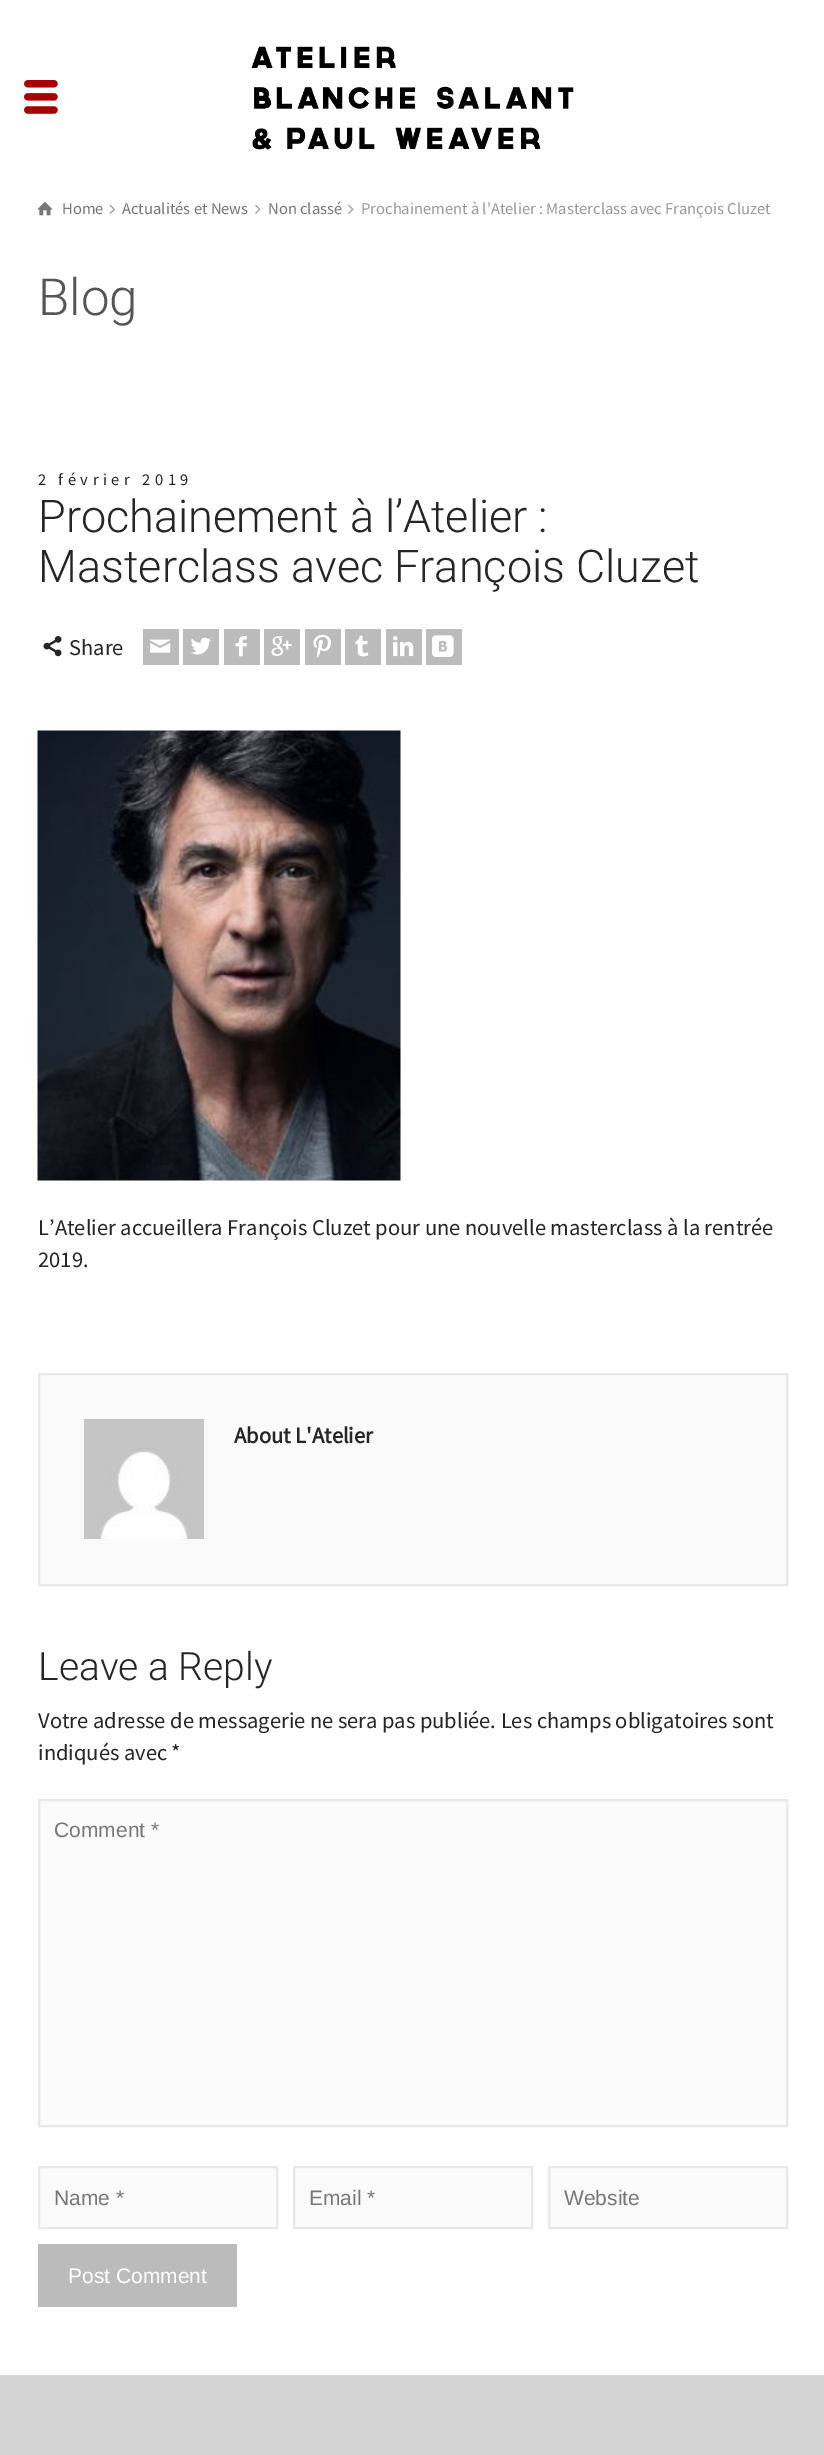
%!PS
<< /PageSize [824 2455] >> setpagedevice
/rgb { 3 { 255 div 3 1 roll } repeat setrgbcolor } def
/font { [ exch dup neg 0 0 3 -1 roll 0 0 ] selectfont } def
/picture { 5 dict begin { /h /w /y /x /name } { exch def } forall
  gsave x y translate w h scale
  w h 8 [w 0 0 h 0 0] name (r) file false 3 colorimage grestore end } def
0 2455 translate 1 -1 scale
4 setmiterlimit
255 255 255 rgb
0 0 824 2455 rectfill
(img/1.rgb) 24 80 34 34 picture
(img/2.rgb) 251 46 323 104 picture
(img/3.rgb) 37 202 16 14 picture
(img/4.rgb) 109 204 6 10 picture
(img/5.rgb) 255 204 6 10 picture
(img/5.rgb) 348 204 6 10 picture
(img/6.rgb) 43 636 19 21 picture
187 187 187 rgb
143 629 36 36 rectfill
(img/7.rgb) 150 639 21 14 picture
183 629 36 36 rectfill
(img/8.rgb) 190 637 21 18 picture
224 629 36 36 rectfill
(img/9.rgb) 235 636 12 21 picture
264 629 36 36 rectfill
(img/10.rgb) 271 636 21 20 picture
305 629 36 36 rectfill
(img/11.rgb) 313 634 18 24 picture
345 629 36 36 rectfill
(img/12.rgb) 355 635 14 22 picture
386 629 36 36 rectfill
(img/13.rgb) 393 636 21 21 picture
426 629 36 36 rectfill
(img/14.rgb) 432 635 22 22 picture
(img/15.rgb) 37 730 364 451 picture
250 250 250 rgb
39 1374 moveto 787 1374 lineto 787 1585 lineto 39 1585 lineto closepath gsave fill grestore
232 232 232 rgb
2 setlinewidth
stroke
(img/16.rgb) 84 1419 120 120 picture
251 251 251 rgb
39 1800 moveto 787 1800 lineto 787 2126 lineto 39 2126 lineto closepath gsave fill grestore
232 232 232 rgb
stroke
250 250 250 rgb
39 2167 moveto 277 2167 lineto 277 2228 lineto 39 2228 lineto closepath gsave fill grestore
232 232 232 rgb
stroke
250 250 250 rgb
294 2167 moveto 532 2167 lineto 532 2228 lineto 294 2228 lineto closepath gsave fill grestore
232 232 232 rgb
stroke
250 250 250 rgb
549 2167 moveto 787 2167 lineto 787 2228 lineto 549 2228 lineto closepath gsave fill grestore
232 232 232 rgb
stroke
187 187 187 rgb
38 2244 199 63 rectfill
212 212 212 rgb
0 2375 824 80 rectfill
/SourceSansPro-Regular 16.5 font
119 119 119 rgb
[
  [(Home) 62 214]
  [(Actualités et News) 122 214]
  [(Non classé) 268 214]
] { aload pop moveto show } forall
153 153 153 rgb
361 214 moveto (Prochainement à l'Atelier : Masterclass avec François Cluzet) show
/Roboto-Light 51 font
85 85 85 rgb
38 315 moveto (Blog) show
/SourceSansPro-Regular 16.5 font
39 38 38 rgb
38 485 moveto 4.5 0 (2 février 2019) ashow
/Roboto-Light 45 font
38 532 moveto (Prochainement à l’Atelier :) show
38 582 moveto (Masterclass avec François Cluzet) show
/SourceSansPro-Regular 22.5 font
[
  [(Share) 69 655]
  [(L’Atelier accueillera François Cluzet pour une nouvelle masterclass à la rentrée) 38 1235]
  [(2019.) 38 1267]
] { aload pop moveto show } forall
/SourceSansPro-Bold 22.5 font
234 1443 moveto (About L'Atelier) show
/Roboto-Light 39 font
38 1680 moveto (Leave a Reply) show
/SourceSansPro-Regular 22.5 font
38 1728 moveto (Votre adresse de messagerie ne sera pas publiée. Les champs obligatoires sont) show
38 1760 moveto (indiqués avec *) show
/LiberationSans-Regular 21 font
119 119 119 rgb
[
  [(Comment *) 54 1837]
  [(Name *) 54 2205]
  [(Email *) 309 2205]
  [(Website) 564 2205]
] { aload pop moveto show } forall
255 255 255 rgb
68 2283 moveto (Post Comment) show
showpage
